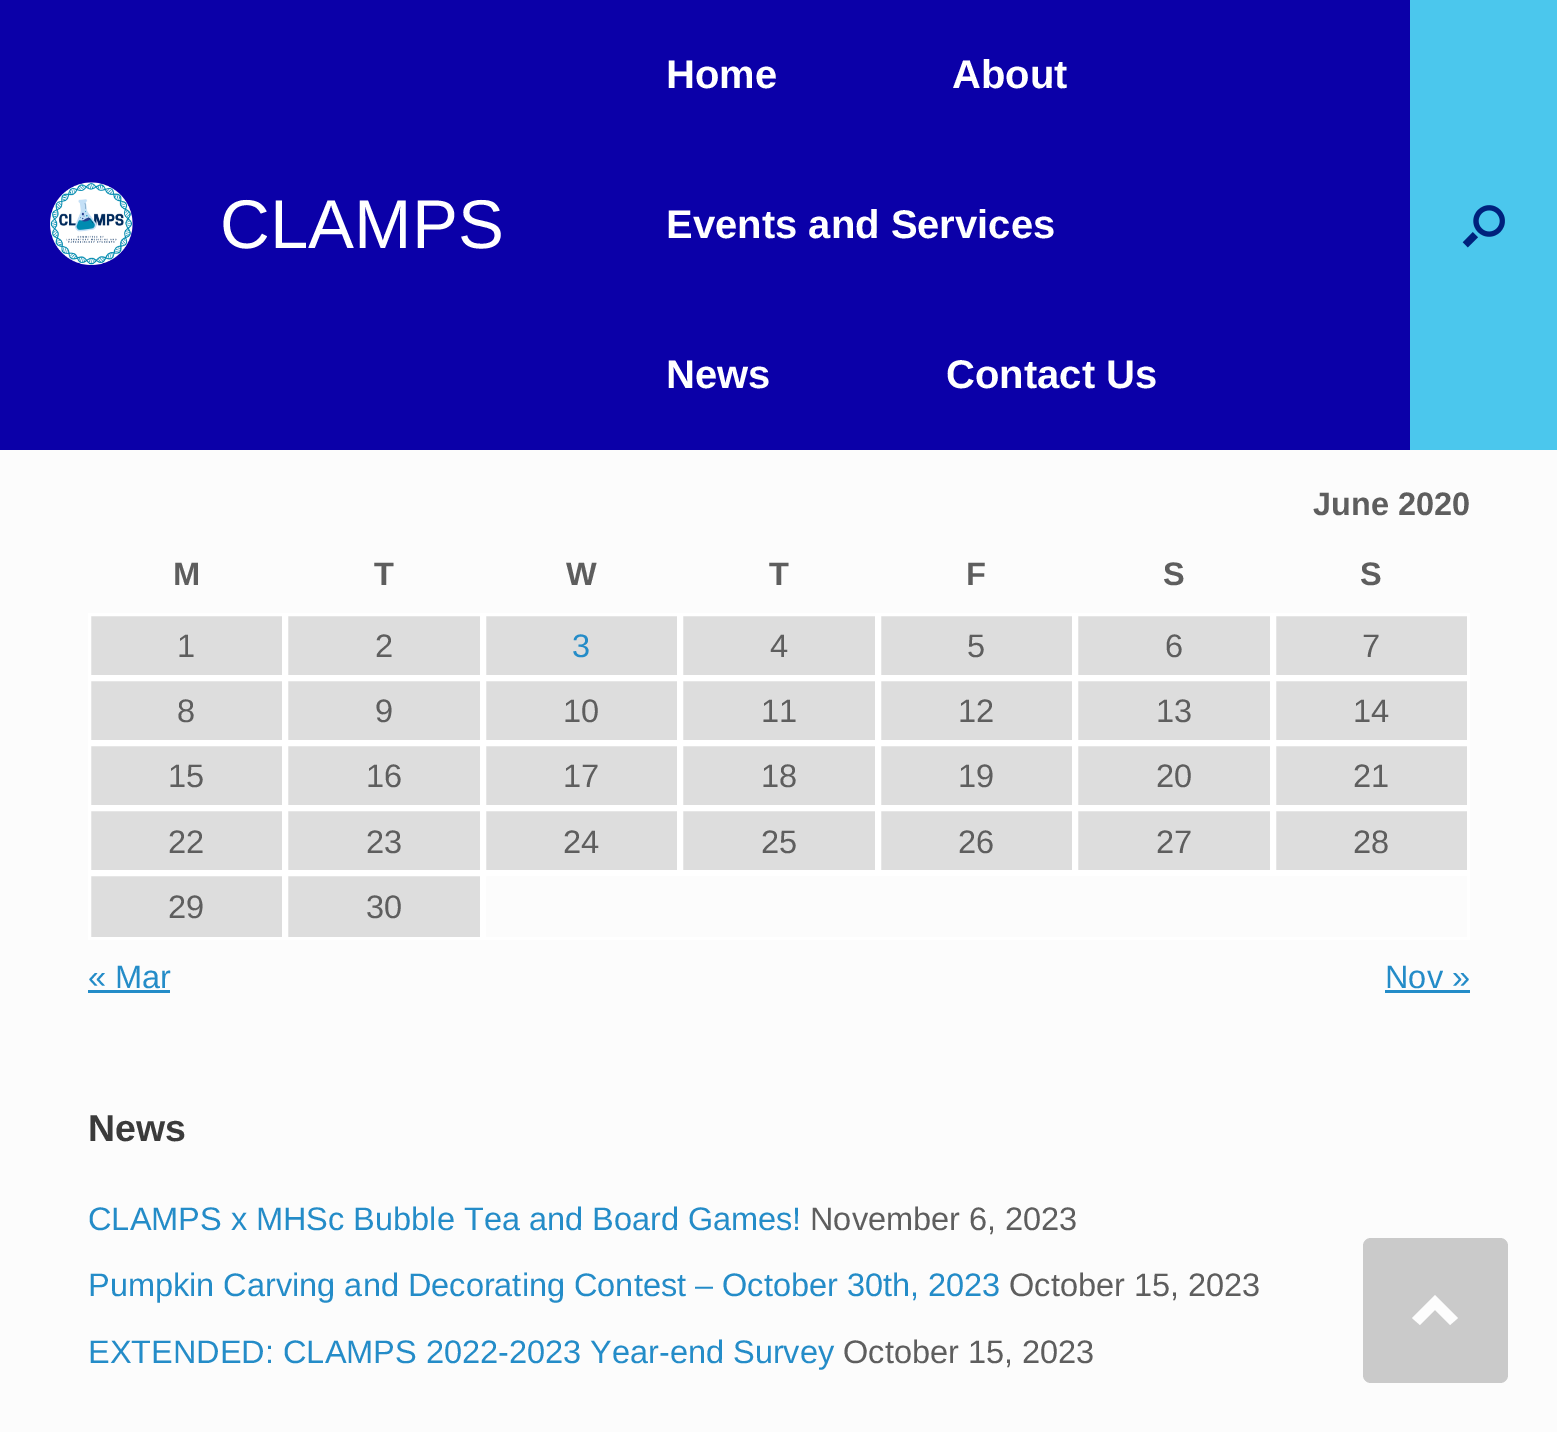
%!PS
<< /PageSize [1557 1432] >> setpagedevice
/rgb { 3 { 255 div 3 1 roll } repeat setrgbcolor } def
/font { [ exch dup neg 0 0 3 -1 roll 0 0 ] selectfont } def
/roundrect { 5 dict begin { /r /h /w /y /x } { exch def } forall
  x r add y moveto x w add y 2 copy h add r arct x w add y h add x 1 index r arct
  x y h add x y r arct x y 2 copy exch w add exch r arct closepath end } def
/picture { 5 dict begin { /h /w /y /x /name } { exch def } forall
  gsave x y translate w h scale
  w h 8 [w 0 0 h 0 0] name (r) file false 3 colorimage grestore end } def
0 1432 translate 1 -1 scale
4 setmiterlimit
252 252 252 rgb
0 0 1557 1432 rectfill
11 0 168 rgb
0 0 1410 450 rectfill
(img/1.rgb) 50 182 83 83 picture
75 199 237 rgb
1410 0 147 450 rectfill
(img/2.rgb) 1462 205 43 43 picture
221 221 221 rgb
89.5 614.5 moveto 283.5 614.5 lineto 283.5 676.5 lineto 89.5 676.5 lineto closepath gsave fill grestore
255 255 255 rgb
3 setlinewidth
stroke
221 221 221 rgb
286.5 614.5 moveto 481.5 614.5 lineto 481.5 676.5 lineto 286.5 676.5 lineto closepath gsave fill grestore
255 255 255 rgb
stroke
221 221 221 rgb
484.5 614.5 moveto 678.5 614.5 lineto 678.5 676.5 lineto 484.5 676.5 lineto closepath gsave fill grestore
255 255 255 rgb
stroke
221 221 221 rgb
681.5 614.5 moveto 876.5 614.5 lineto 876.5 676.5 lineto 681.5 676.5 lineto closepath gsave fill grestore
255 255 255 rgb
stroke
221 221 221 rgb
879.5 614.5 moveto 1073.5 614.5 lineto 1073.5 676.5 lineto 879.5 676.5 lineto closepath gsave fill grestore
255 255 255 rgb
stroke
221 221 221 rgb
1076.5 614.5 moveto 1271.5 614.5 lineto 1271.5 676.5 lineto 1076.5 676.5 lineto closepath gsave fill grestore
255 255 255 rgb
stroke
221 221 221 rgb
1274.5 614.5 moveto 1468.5 614.5 lineto 1468.5 676.5 lineto 1274.5 676.5 lineto closepath gsave fill grestore
255 255 255 rgb
stroke
221 221 221 rgb
89.5 679.5 moveto 283.5 679.5 lineto 283.5 741.5 lineto 89.5 741.5 lineto closepath gsave fill grestore
255 255 255 rgb
stroke
221 221 221 rgb
286.5 679.5 moveto 481.5 679.5 lineto 481.5 741.5 lineto 286.5 741.5 lineto closepath gsave fill grestore
255 255 255 rgb
stroke
221 221 221 rgb
484.5 679.5 moveto 678.5 679.5 lineto 678.5 741.5 lineto 484.5 741.5 lineto closepath gsave fill grestore
255 255 255 rgb
stroke
221 221 221 rgb
681.5 679.5 moveto 876.5 679.5 lineto 876.5 741.5 lineto 681.5 741.5 lineto closepath gsave fill grestore
255 255 255 rgb
stroke
221 221 221 rgb
879.5 679.5 moveto 1073.5 679.5 lineto 1073.5 741.5 lineto 879.5 741.5 lineto closepath gsave fill grestore
255 255 255 rgb
stroke
221 221 221 rgb
1076.5 679.5 moveto 1271.5 679.5 lineto 1271.5 741.5 lineto 1076.5 741.5 lineto closepath gsave fill grestore
255 255 255 rgb
stroke
221 221 221 rgb
1274.5 679.5 moveto 1468.5 679.5 lineto 1468.5 741.5 lineto 1274.5 741.5 lineto closepath gsave fill grestore
255 255 255 rgb
stroke
221 221 221 rgb
89.5 744.5 moveto 283.5 744.5 lineto 283.5 806.5 lineto 89.5 806.5 lineto closepath gsave fill grestore
255 255 255 rgb
stroke
221 221 221 rgb
286.5 744.5 moveto 481.5 744.5 lineto 481.5 806.5 lineto 286.5 806.5 lineto closepath gsave fill grestore
255 255 255 rgb
stroke
221 221 221 rgb
484.5 744.5 moveto 678.5 744.5 lineto 678.5 806.5 lineto 484.5 806.5 lineto closepath gsave fill grestore
255 255 255 rgb
stroke
221 221 221 rgb
681.5 744.5 moveto 876.5 744.5 lineto 876.5 806.5 lineto 681.5 806.5 lineto closepath gsave fill grestore
255 255 255 rgb
stroke
221 221 221 rgb
879.5 744.5 moveto 1073.5 744.5 lineto 1073.5 806.5 lineto 879.5 806.5 lineto closepath gsave fill grestore
255 255 255 rgb
stroke
221 221 221 rgb
1076.5 744.5 moveto 1271.5 744.5 lineto 1271.5 806.5 lineto 1076.5 806.5 lineto closepath gsave fill grestore
255 255 255 rgb
stroke
221 221 221 rgb
1274.5 744.5 moveto 1468.5 744.5 lineto 1468.5 806.5 lineto 1274.5 806.5 lineto closepath gsave fill grestore
255 255 255 rgb
stroke
221 221 221 rgb
89.5 809.5 moveto 283.5 809.5 lineto 283.5 871.5 lineto 89.5 871.5 lineto closepath gsave fill grestore
255 255 255 rgb
stroke
221 221 221 rgb
286.5 809.5 moveto 481.5 809.5 lineto 481.5 871.5 lineto 286.5 871.5 lineto closepath gsave fill grestore
255 255 255 rgb
stroke
221 221 221 rgb
484.5 809.5 moveto 678.5 809.5 lineto 678.5 871.5 lineto 484.5 871.5 lineto closepath gsave fill grestore
255 255 255 rgb
stroke
221 221 221 rgb
681.5 809.5 moveto 876.5 809.5 lineto 876.5 871.5 lineto 681.5 871.5 lineto closepath gsave fill grestore
255 255 255 rgb
stroke
221 221 221 rgb
879.5 809.5 moveto 1073.5 809.5 lineto 1073.5 871.5 lineto 879.5 871.5 lineto closepath gsave fill grestore
255 255 255 rgb
stroke
221 221 221 rgb
1076.5 809.5 moveto 1271.5 809.5 lineto 1271.5 871.5 lineto 1076.5 871.5 lineto closepath gsave fill grestore
255 255 255 rgb
stroke
221 221 221 rgb
1274.5 809.5 moveto 1468.5 809.5 lineto 1468.5 871.5 lineto 1274.5 871.5 lineto closepath gsave fill grestore
255 255 255 rgb
stroke
221 221 221 rgb
89.5 874.5 moveto 283.5 874.5 lineto 283.5 938.5 lineto 89.5 938.5 lineto closepath gsave fill grestore
255 255 255 rgb
stroke
221 221 221 rgb
286.5 874.5 moveto 481.5 874.5 lineto 481.5 938.5 lineto 286.5 938.5 lineto closepath gsave fill grestore
255 255 255 rgb
stroke
484.5 874.5 984 64 rectstroke
36 140 200 rgb
88 990 82 3 rectfill
1385 990 85 3 rectfill
202 202 202 rgb
1363 1238 145 145 8 roundrect fill
253 253 253 rgb
1458 1318 moveto 1435 1295 lineto 1412 1318 lineto 1420 1325 lineto 1435 1310 lineto 1450 1325 lineto closepath fill
/LiberationSans-Regular 69 font
255 255 255 rgb
220 248 moveto (CLAMPS) show
/LiberationSans-Bold 40 font
[
  [(Home) 666 88]
  [(About) 952 88]
  [(Events and Services) 666 238]
  [(News) 666 388]
  [(Contact Us) 946 388]
] { aload pop moveto show } forall
/LiberationSans-Bold 32.5 font
94 94 94 rgb
[
  [(June 2020) 1313 515]
  [(M) 173 585]
  [(T) 374 585]
  [(W) 566 585]
  [(T) 769 585]
  [(F) 966 585]
  [(S) 1163 585]
  [(S) 1360 585]
] { aload pop moveto show } forall
/LiberationSans-Regular 32.5 font
177 657 moveto (1) show
375 657 moveto (2) show
36 140 200 rgb
572 657 moveto (3) show
94 94 94 rgb
[
  [(4) 770 657]
  [(5) 967 657]
  [(6) 1165 657]
  [(7) 1362 657]
  [(8) 177 722]
  [(9) 375 722]
  [(10) 563 722]
  [(11) 761 722]
  [(12) 958 722]
  [(13) 1156 722]
  [(14) 1353 722]
  [(15) 168 787]
  [(16) 366 787]
  [(17) 563 787]
  [(18) 761 787]
  [(19) 958 787]
  [(20) 1156 787]
  [(21) 1353 787]
  [(22) 168 853]
  [(23) 366 853]
  [(24) 563 853]
  [(25) 761 853]
  [(26) 958 853]
  [(27) 1156 853]
  [(28) 1353 853]
  [(29) 168 918]
  [(30) 366 918]
] { aload pop moveto show } forall
36 140 200 rgb
88 988 moveto (« Mar) show
1385 988 moveto (Nov ») show
/LiberationSans-Bold 37.5 font
59 59 59 rgb
88 1141 moveto (News) show
/LiberationSans-Regular 32.5 font
36 140 200 rgb
88 1230 moveto (CLAMPS x MHSc Bubble Tea and Board Games!) show
94 94 94 rgb
810 1230 moveto (November 6, 2023) show
36 140 200 rgb
88 1296 moveto (Pumpkin Carving and Decorating Contest – October 30th, 2023) show
94 94 94 rgb
1009 1296 moveto (October 15, 2023) show
36 140 200 rgb
88 1363 moveto (EXTENDED: CLAMPS 2022-2023 Year-end Survey) show
94 94 94 rgb
843 1363 moveto (October 15, 2023) show
showpage
